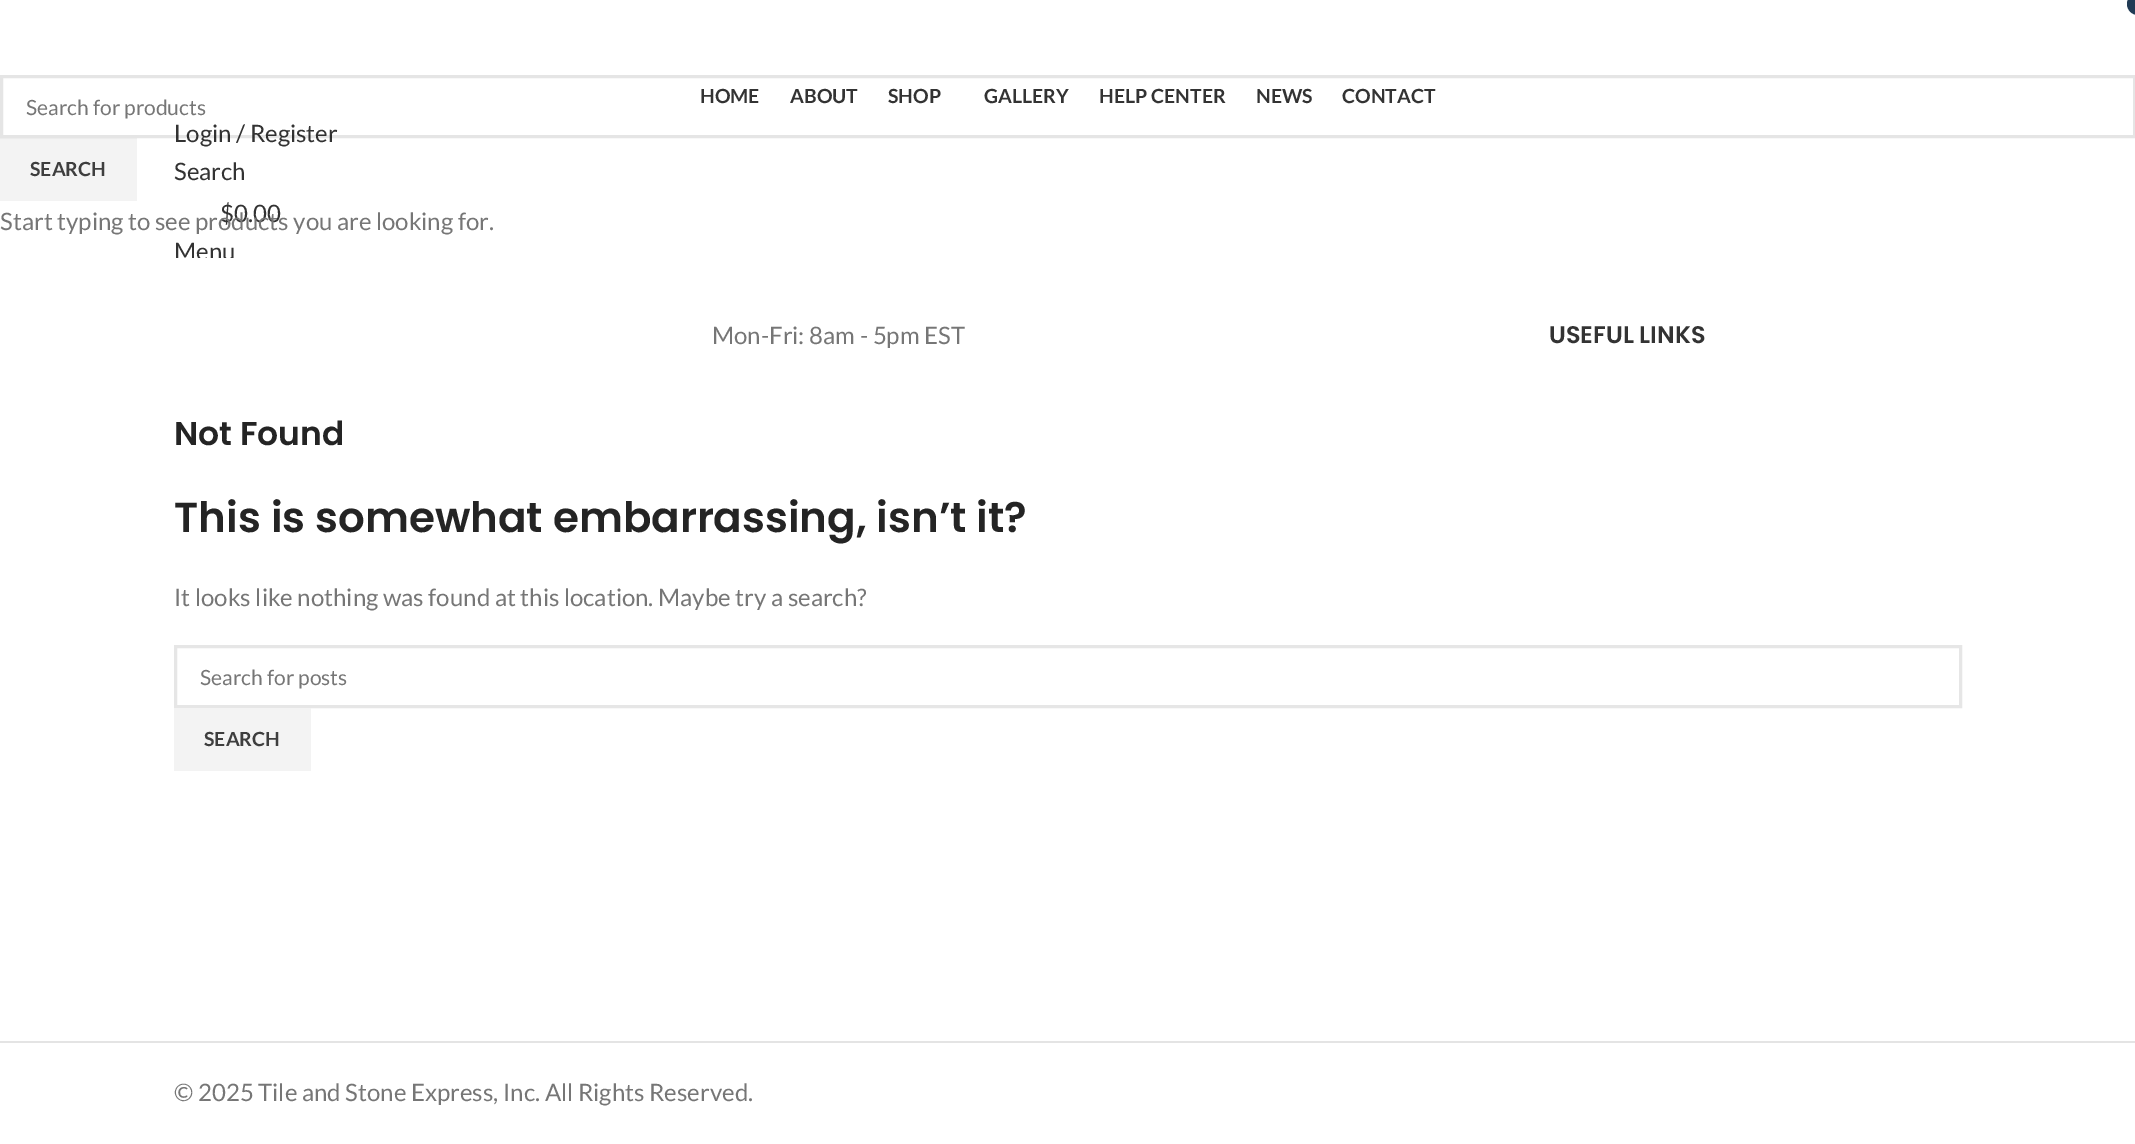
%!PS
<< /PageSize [2135 1144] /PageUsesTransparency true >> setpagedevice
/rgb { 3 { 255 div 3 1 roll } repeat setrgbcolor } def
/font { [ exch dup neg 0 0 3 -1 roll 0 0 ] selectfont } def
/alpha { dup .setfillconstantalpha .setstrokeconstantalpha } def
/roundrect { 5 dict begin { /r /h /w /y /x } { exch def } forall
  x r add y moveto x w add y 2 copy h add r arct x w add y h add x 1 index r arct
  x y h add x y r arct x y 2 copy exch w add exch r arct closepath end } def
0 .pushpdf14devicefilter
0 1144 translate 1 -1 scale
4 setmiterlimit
255 255 255 rgb
0 0 2135 1144 rectfill
33 59 85 rgb
2127 -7 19 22 11 roundrect fill
228 228 228 rgb
0 1041 2135 2 rectfill
230 230 230 rgb
3 setlinewidth
175.5 646.5 1785 60 rectstroke
243 243 243 rgb
174 708 137 63 rectfill
0 138 137 63 rectfill
/Lato-Bold 19.5 font
51 51 51 rgb
[
  [(HOME) 700 103]
  [(ABOUT) 790 103]
  [(SHOP) 888 103]
  [(GALLERY) 984 103]
  [(HELP CENTER) 1099 103]
  [(NEWS) 1256 103]
  [(CONTACT) 1342 103]
] { aload pop moveto show } forall
/Lato-Regular 24 font
[
  [(Login / Register) 174 142]
  [(Search) 174 180]
  [($0.00) 220 222]
  [(Menu) 174 260]
] { aload pop moveto show } forall
255 255 255 rgb
176 258 58 3 rectfill
118 118 118 rgb
712 344 moveto (Mon-Fri: 8am - 5pm EST) show
/Poppins-SemiBold 24 font
51 51 51 rgb
1549 343 moveto (USEFUL LINKS) show
/Lato-Regular 24 font
118 118 118 rgb
174 1101 moveto (© 2025 Tile and Stone Express, Inc. All Rights Reserved.) show
/Poppins-SemiBold 33 font
36 36 36 rgb
174 445 moveto (Not Found) show
/Poppins-SemiBold 42 font
174 532 moveto (This is somewhat embarrassing, isn’t it?) show
/Lato-Regular 24 font
118 118 118 rgb
174 606 moveto (It looks like nothing was found at this location. Maybe try a search?) show
/Lato-Regular 21 font
200 685 moveto (Search for posts) show
/Lato-Bold 19.5 font
62 62 62 rgb
204 746 moveto (SEARCH) show
0.1 alpha
0 0 0 rgb
1.5 76.5 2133 60 rectstroke
/Lato-Regular 21 font
1 alpha
118 118 118 rgb
26 115 moveto (Search for products) show
/Lato-Bold 19.5 font
62 62 62 rgb
30 176 moveto (SEARCH) show
/Lato-Regular 24 font
118 118 118 rgb
0 230 moveto (Start typing to see products you are looking for.) show
.poppdf14devicefilter showpage
